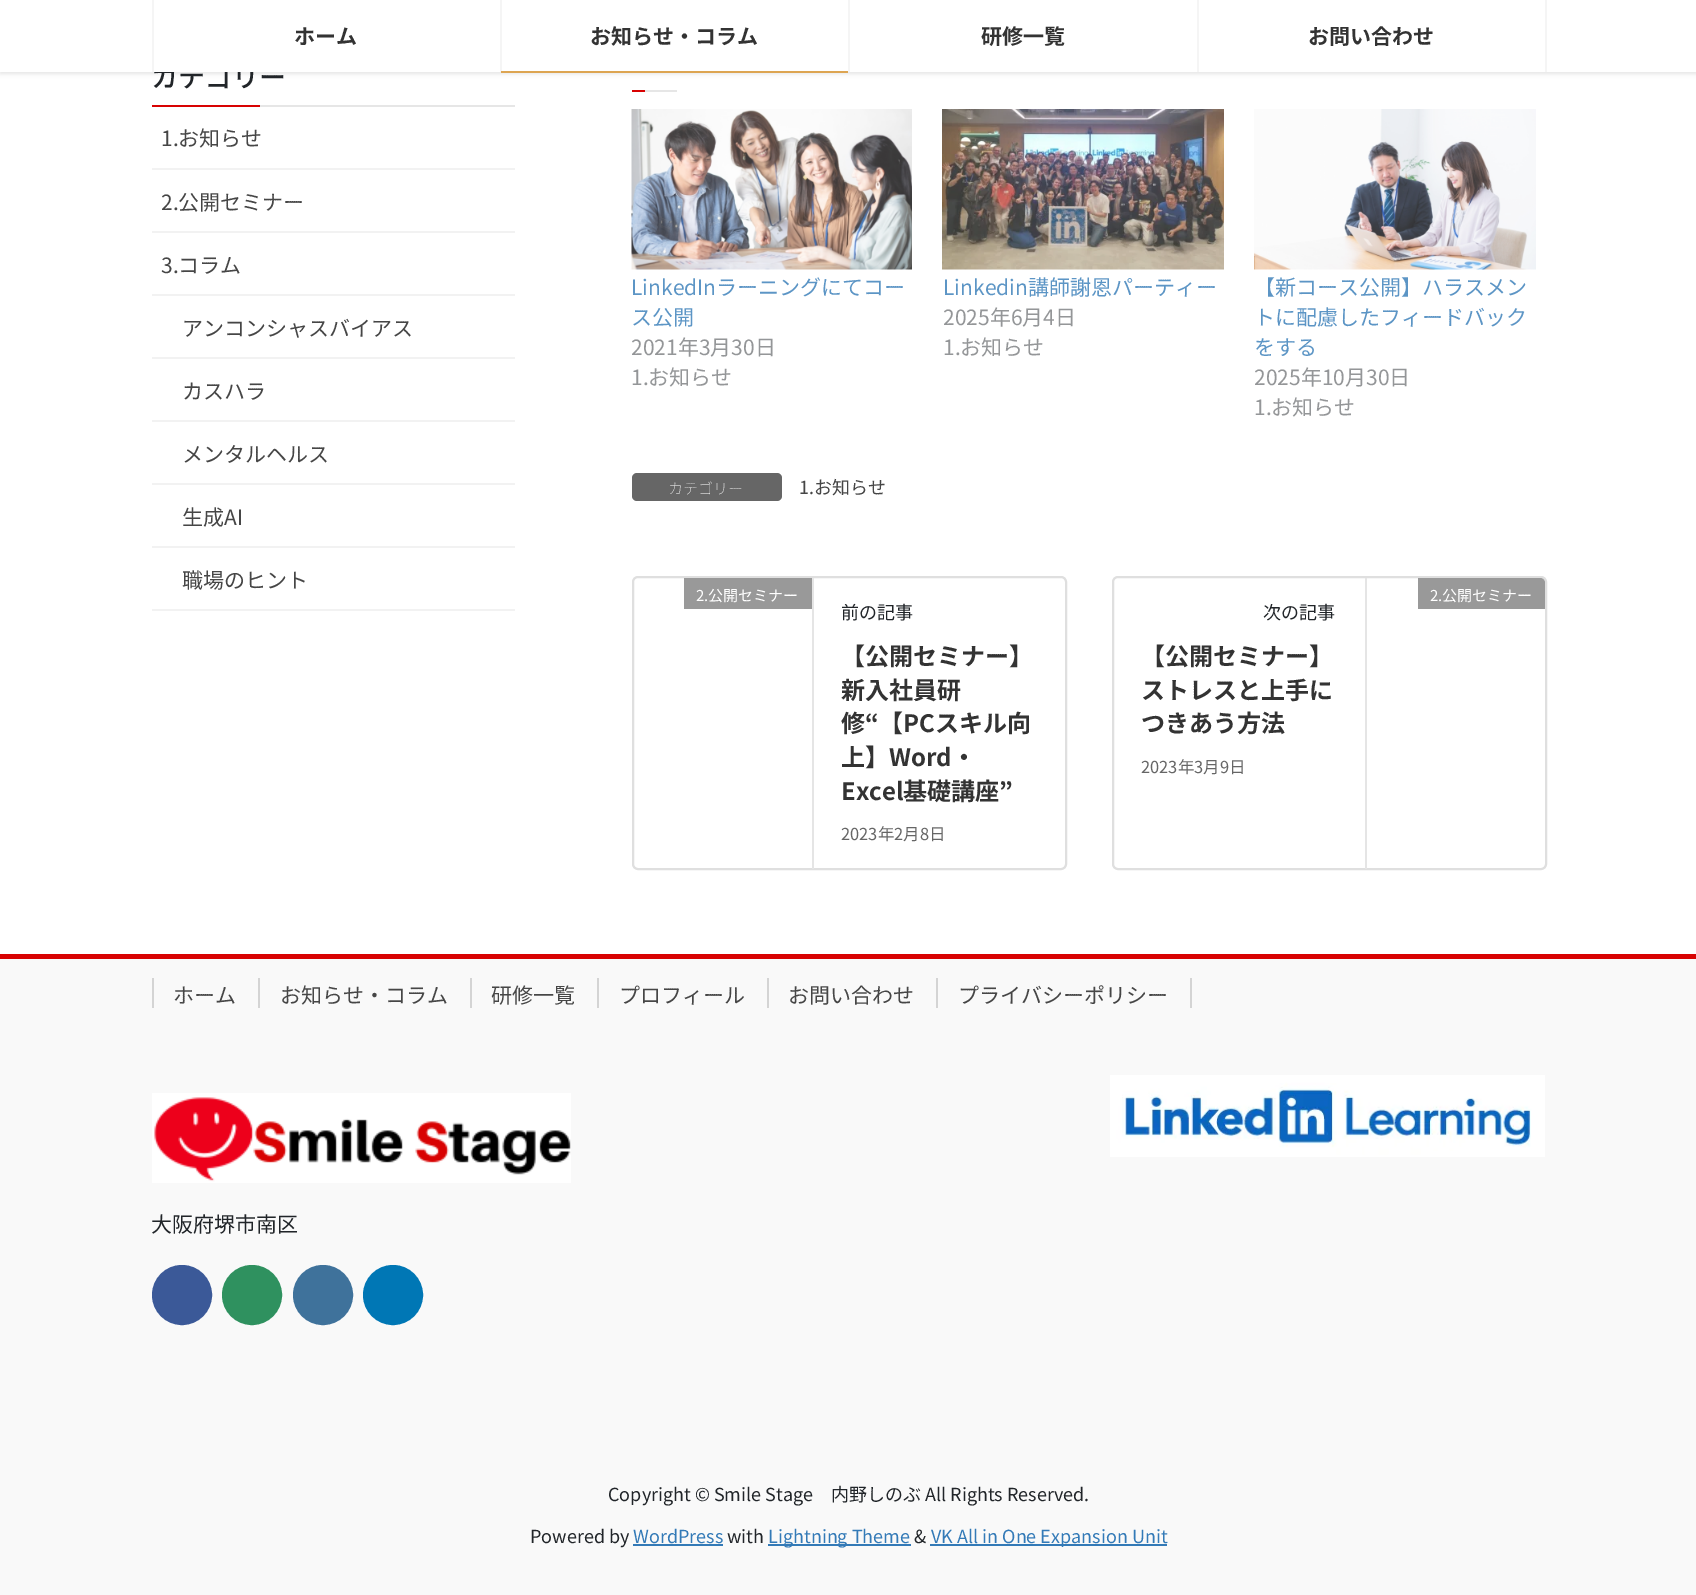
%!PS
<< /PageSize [1696 1595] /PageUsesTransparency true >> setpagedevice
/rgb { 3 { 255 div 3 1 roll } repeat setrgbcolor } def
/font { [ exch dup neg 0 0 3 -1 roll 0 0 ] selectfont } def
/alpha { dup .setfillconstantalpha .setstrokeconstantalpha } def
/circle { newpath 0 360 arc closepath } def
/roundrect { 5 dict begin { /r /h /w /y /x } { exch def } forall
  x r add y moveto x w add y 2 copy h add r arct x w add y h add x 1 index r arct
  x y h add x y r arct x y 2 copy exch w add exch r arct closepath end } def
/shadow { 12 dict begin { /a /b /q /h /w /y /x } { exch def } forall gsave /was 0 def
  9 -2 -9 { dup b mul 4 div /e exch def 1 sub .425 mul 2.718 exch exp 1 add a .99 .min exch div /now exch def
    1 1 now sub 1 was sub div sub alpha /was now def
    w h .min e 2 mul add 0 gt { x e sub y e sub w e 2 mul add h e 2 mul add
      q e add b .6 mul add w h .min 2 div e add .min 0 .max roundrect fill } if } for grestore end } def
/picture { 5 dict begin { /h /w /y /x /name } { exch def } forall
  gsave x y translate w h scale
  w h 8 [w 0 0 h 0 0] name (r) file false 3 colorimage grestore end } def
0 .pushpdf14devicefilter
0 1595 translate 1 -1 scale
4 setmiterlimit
255 255 255 rgb
0 0 1696 1595 rectfill
0 0 0 rgb
0 2 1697 72 0 2 0.1 shadow
[
  [260 105 255 2 230 230 230]
  [152 105 108 2 216 2 2]
  [152 168 363 2 242 242 242]
  [152 231 363 2 242 242 242]
  [152 294 363 2 242 242 242]
  [152 357 363 2 242 242 242]
  [152 420 363 2 242 242 242]
  [152 483 363 2 242 242 242]
  [152 546 363 2 242 242 242]
  [152 609 363 2 242 242 242]
  [645 90 32 2 230 230 230]
  [632 90 13 2 216 2 2]
] { aload pop rgb rectfill } forall
(img/1.rgb) 631 109 281 161 picture
(img/2.rgb) 942 109 282 161 picture
(img/3.rgb) 1254 109 282 161 picture
102 102 102 rgb
632 473 150 28 5 roundrect fill
223 223 223 rgb
2 setlinewidth
633 577 433 292 5 roundrect stroke
229 229 229 rgb
812 578 2 291 rectfill
153 153 153 rgb
684 578 128 31 rectfill
223 223 223 rgb
1113 577 433 292 5 roundrect stroke
229 229 229 rgb
1365 578 2 291 rectfill
153 153 153 rgb
1418 578 moveto 1540 578 lineto 1543 578 1545 580 1545 583 curveto 1545 609 lineto 1418 609 lineto closepath fill
[
  [0 959 1696 636 249 249 249]
  [0 954 1696 5 216 2 2]
  [152 978 2 30 212 212 212]
  [258 978 2 30 212 212 212]
  [470 978 2 30 212 212 212]
  [597 978 2 30 212 212 212]
  [767 978 2 30 212 212 212]
  [1190 978 2 30 212 212 212]
  [936 978 2 30 212 212 212]
] { aload pop rgb rectfill } forall
(img/4.rgb) 1110 1075 435 82 picture
(img/5.rgb) 152 1093 419 90 picture
59 89 152 rgb
182 1295 29 circle gsave fill grestore
stroke
47 145 95 rgb
252 1295 29 circle gsave fill grestore
stroke
63 114 155 rgb
323 1295 29 circle gsave fill grestore
stroke
0 119 181 rgb
393 1295 29 circle gsave fill grestore
stroke
[
  [633 1544 90 2 51 122 183]
  [768 1544 143 2 51 122 183]
  [930 1544 237 2 51 122 183]
] { aload pop rgb rectfill } forall
/NotoSansJP-Medium 27 font
33 37 41 rgb
151 87 moveto (カテゴリー) show
255 255 255 rgb
0 0 1696 72 rectfill
/NotoSansJP-Bold 21 font
51 51 51 rgb
1308 44 moveto (お問い合わせ) show
245 245 245 rgb
1197 0 2 72 rectfill
1545 0 2 72 rectfill
51 51 51 rgb
981 44 moveto (研修一覧) show
[
  [848 0 2 72 245 245 245]
  [500 0 2 72 245 245 245]
  [501 71 347 2 221 165 82]
] { aload pop rgb rectfill } forall
51 51 51 rgb
590 44 moveto (お知らせ・コラム) show
294 44 moveto (ホーム) show
245 245 245 rgb
152 0 2 72 rectfill
/NotoSansJP-Regular 21 font
70 70 70 rgb
[
  [(1.お知らせ) 161 146]
  [(2.公開セミナー) 161 210]
  [(3.コラム) 161 273]
  [(アンコンシャスバイアス) 182 336]
  [(カスハラ) 182 399]
  [(メンタルヘルス) 182 462]
  [(生成AI) 182 525]
  [(職場のヒント) 182 588]
] { aload pop moveto show } forall
92 149 197 rgb
631 295 moveto (LinkedInラーニングにてコー) show
631 325 moveto (ス公開) show
148 150 152 rgb
631 355 moveto (2021年3月30日) show
631 385 moveto (1.お知らせ) show
92 149 197 rgb
943 295 moveto (Linkedin講師謝恩パーティー) show
148 150 152 rgb
943 325 moveto (2025年6月4日) show
943 355 moveto (1.お知らせ) show
92 149 197 rgb
[
  [(【新コース公開】ハラスメン) 1254 295]
  [(トに配慮したフィードバック) 1254 325]
  [(をする) 1254 355]
] { aload pop moveto show } forall
148 150 152 rgb
1254 385 moveto (2025年10月30日) show
1254 415 moveto (1.お知らせ) show
/NotoSansJP-Thin 15 font
255 255 255 rgb
668 494 moveto (カテゴリー) show
/NotoSansJP-Regular 18 font
70 70 70 rgb
799 494 moveto (1.お知らせ) show
/NotoSansJP-Regular 15 font
255 255 255 rgb
696 601 moveto (2.公開セミナー) show
/NotoSansJP-Regular 18 font
33 37 41 rgb
841 619 moveto (前の記事) show
/NotoSansJP-Bold 24 font
51 51 51 rgb
[
  [(【公開セミナー】) 841 665]
  [(新入社員研) 841 699]
  [(修“【PCスキル向) 841 732]
  [(上】Word・) 841 766]
  [(Excel基礎講座”) 841 800]
] { aload pop moveto show } forall
/NotoSansJP-Regular 16.5 font
102 102 102 rgb
841 840 moveto (2023年2月8日) show
/NotoSansJP-Regular 15 font
255 255 255 rgb
1430 601 moveto (2.公開セミナー) show
/NotoSansJP-Regular 18 font
33 37 41 rgb
1263 619 moveto (次の記事) show
/NotoSansJP-Bold 24 font
51 51 51 rgb
[
  [(【公開セミナー】) 1141 665]
  [(ストレスと上手に) 1141 699]
  [(つきあう方法) 1141 732]
] { aload pop moveto show } forall
/NotoSansJP-Regular 16.5 font
102 102 102 rgb
1141 773 moveto (2023年3月9日) show
/NotoSansJP-Regular 21 font
70 70 70 rgb
[
  [(ホーム) 173 1003]
  [(お知らせ・コラム) 280 1003]
  [(研修一覧) 491 1003]
  [(プロフィール) 619 1003]
  [(お問い合わせ) 788 1003]
  [(プライバシーポリシー) 958 1003]
] { aload pop moveto show } forall
33 37 41 rgb
151 1232 moveto (大阪府堺市南区) show
/NotoSansJP-Regular 18 font
608 1501 moveto (Copyright © Smile Stage　内野しのぶ All Rights Reserved.) show
530 1543 moveto (Powered by) show
51 122 183 rgb
633 1543 moveto (WordPress) show
33 37 41 rgb
727 1543 moveto (with) show
51 122 183 rgb
768 1543 moveto (Lightning Theme) show
33 37 41 rgb
914 1543 moveto (&) show
51 122 183 rgb
931 1543 moveto (VK All in One Expansion Unit) show
.poppdf14devicefilter showpage
